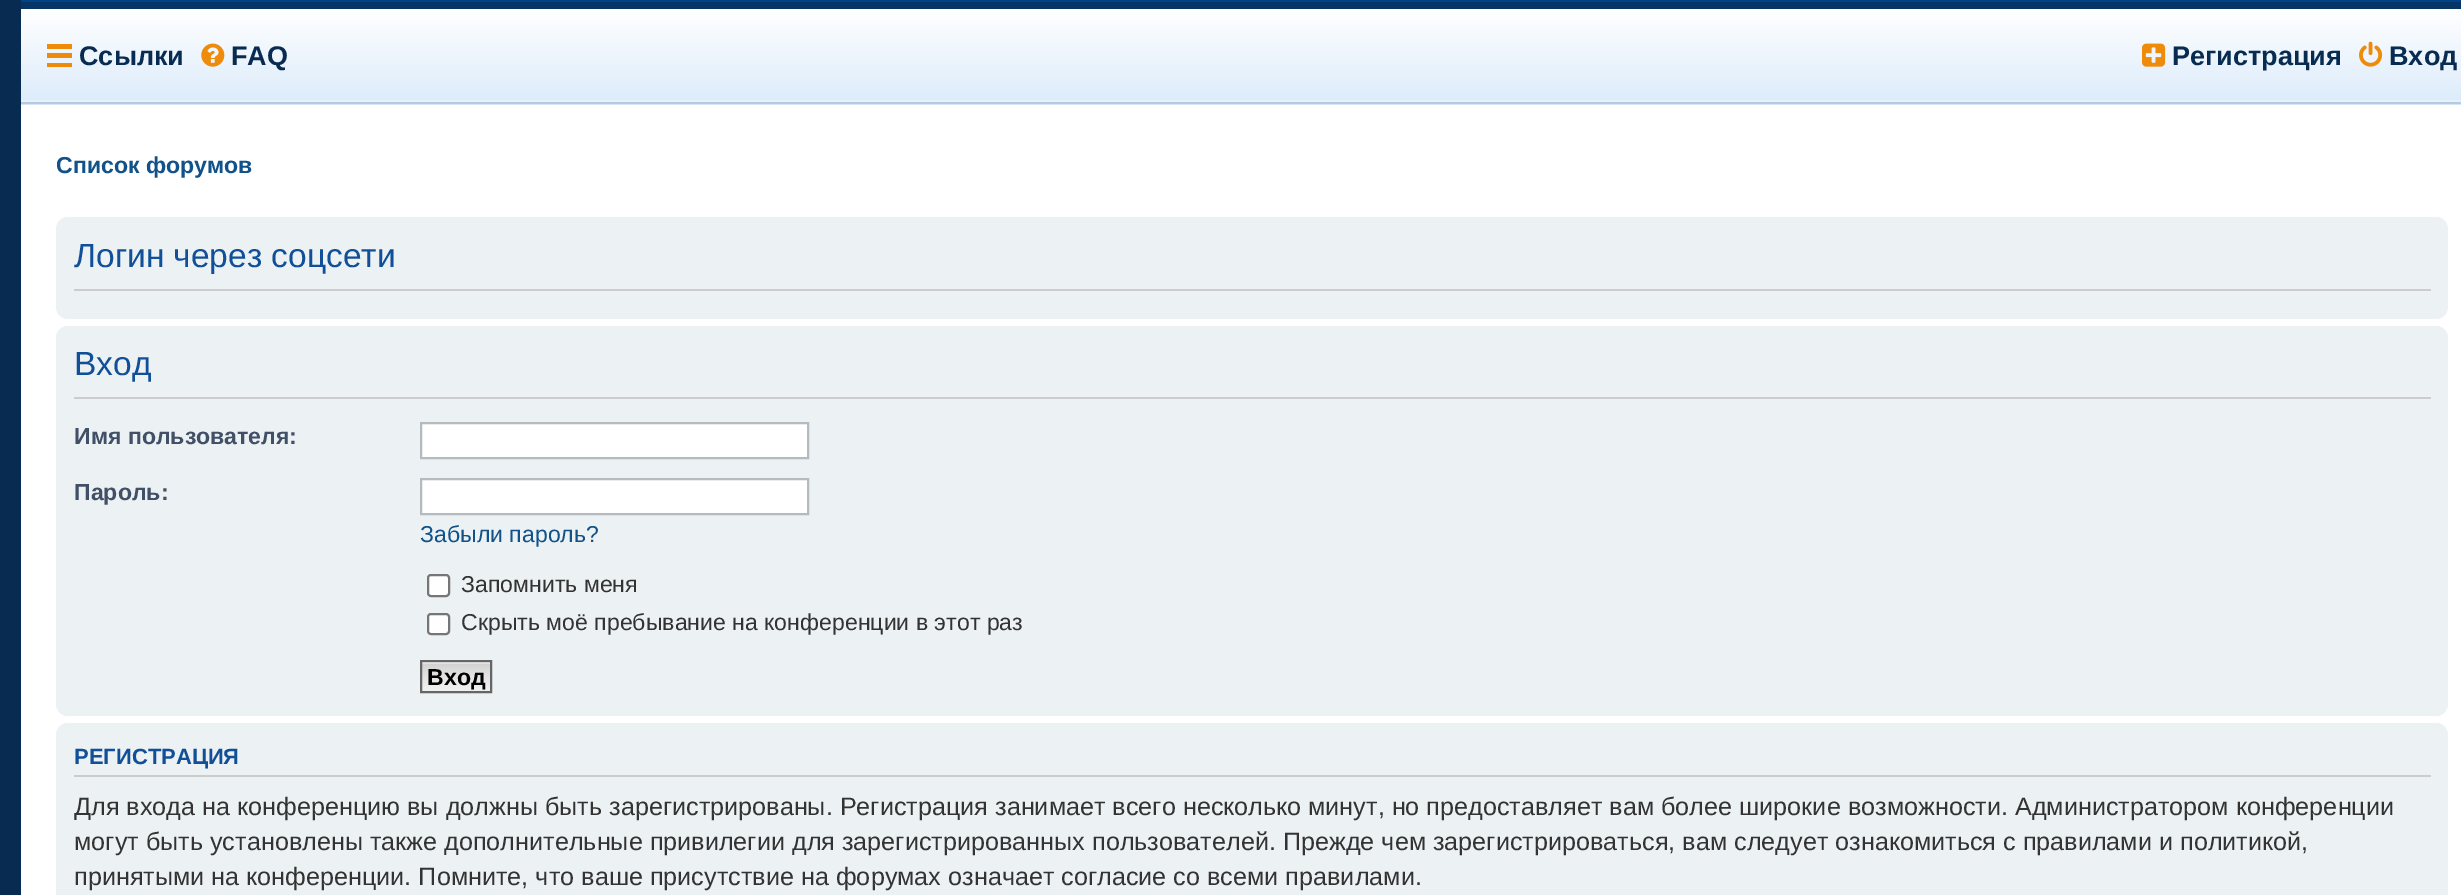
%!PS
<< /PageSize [2461 895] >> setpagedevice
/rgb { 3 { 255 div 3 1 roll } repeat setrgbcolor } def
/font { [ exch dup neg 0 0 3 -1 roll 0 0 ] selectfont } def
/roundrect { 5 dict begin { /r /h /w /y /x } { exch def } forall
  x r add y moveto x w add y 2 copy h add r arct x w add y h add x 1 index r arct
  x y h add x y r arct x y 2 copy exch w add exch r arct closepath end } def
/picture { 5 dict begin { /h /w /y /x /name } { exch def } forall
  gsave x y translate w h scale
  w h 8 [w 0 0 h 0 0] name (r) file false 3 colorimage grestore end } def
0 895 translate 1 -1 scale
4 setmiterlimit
8 43 81 rgb
0 0 2461 895 rectfill
[
  [21 105 2440 790 255 255 255]
  [21 0 2440 2 0 67 137]
  [21 104 2440 1 217 230 241]
] { aload pop rgb rectfill } forall
gsave 21 9 moveto 2461 9 lineto 2461 100 lineto 21 100 lineto closepath clip newpath
<< /ShadingType 2 /ColorSpace /DeviceRGB /Coords [1252 102 1252 9] /Extend [true true] /Function << /FunctionType 2 /Domain [0 1] /C0 [0.863 0.922 0.984] /C1 [1 1 1] /N 1 >> >> shfill grestore
[
  [21 100 2440 2 231 241 252]
  [21 2 2440 7 6 52 101]
  [21 102 2440 2 179 204 228]
  [47 44 25 5 238 139 10]
  [47 53 25 5 238 139 10]
  [47 63 25 4 238 139 10]
] { aload pop rgb rectfill } forall
(img/1.rgb) 201 43 24 24 picture
(img/2.rgb) 2142 43 24 24 picture
(img/3.rgb) 2359 41 24 26 picture
236 241 243 rgb
56 217 2392 102 12 roundrect fill
204 204 204 rgb
74 289 2357 2 rectfill
236 241 243 rgb
56 326 2392 390 12 roundrect fill
204 204 204 rgb
74 397 2357 2 rectfill
255 255 255 rgb
421 423 moveto 808 423 lineto 808 458 lineto 421 458 lineto closepath gsave fill grestore
180 186 192 rgb
2 setlinewidth
stroke
255 255 255 rgb
421 479 moveto 808 479 lineto 808 514 lineto 421 514 lineto closepath gsave fill grestore
180 186 192 rgb
stroke
255 255 255 rgb
428 575 21 21 3 roundrect gsave fill grestore
118 118 118 rgb
stroke
255 255 255 rgb
428 614 21 20 3 roundrect gsave fill grestore
118 118 118 rgb
stroke
250 250 250 rgb
422 662 68 1 rectfill
(img/4.rgb) 422 663 68 28 picture
102 102 102 rgb
421 661 70 31 rectstroke
236 241 243 rgb
56 723 2392 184 12 roundrect fill
204 204 204 rgb
74 775 2357 2 rectfill
/LiberationSans-Bold 27 font
8 44 81 rgb
[
  [(Ссылки) 79 65]
  [(FAQ) 231 65]
  [(Регистрация) 2172 65]
  [(Вход) 2389 65]
] { aload pop moveto show } forall
/LiberationSans-Bold 23.1 font
16 82 137 rgb
56 173 moveto (Список форумов) show
gsave
74 226 2357 84 rectclip
/LiberationSans-Regular 33.5 font
17 80 152 rgb
74 267 moveto (Логин через соцсети) show
grestore
/LiberationSans-Regular 33.5 font
17 80 152 rgb
74 375 moveto (Вход) show
/LiberationSans-Bold 23.1 font
66 80 103 rgb
74 444 moveto (Имя пользователя:) show
74 500 moveto (Пароль:) show
/LiberationSans-Regular 23.1 font
16 82 137 rgb
420 542 moveto (Забыли пароль?) show
51 51 51 rgb
461 592 moveto (Запомнить меня) show
461 630 moveto (Скрыть моё пребывание на конференции в этот раз) show
/LiberationSans-Bold 23.1 font
0 0 0 rgb
427 685 moveto (Вход) show
/LiberationSans-Bold 22 font
17 80 152 rgb
74 764 moveto (РЕГИСТРАЦИЯ) show
gsave
74 732 2357 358 rectclip
/LiberationSans-Regular 25.2 font
51 51 51 rgb
74 815 moveto (Для входа на конференцию вы должны быть зарегистрированы. Регистрация занимает всего несколько минут, но предоставляет вам более широкие возможности. Администратором конференции) show
grestore
/LiberationSans-Regular 25.2 font
51 51 51 rgb
74 850 moveto (могут быть установлены также дополнительные привилегии для зарегистрированных пользователей. Прежде чем зарегистрироваться, вам следует ознакомиться с правилами и политикой,) show
74 885 moveto (принятыми на конференции. Помните, что ваше присутствие на форумах означает согласие со всеми правилами.) show
showpage
